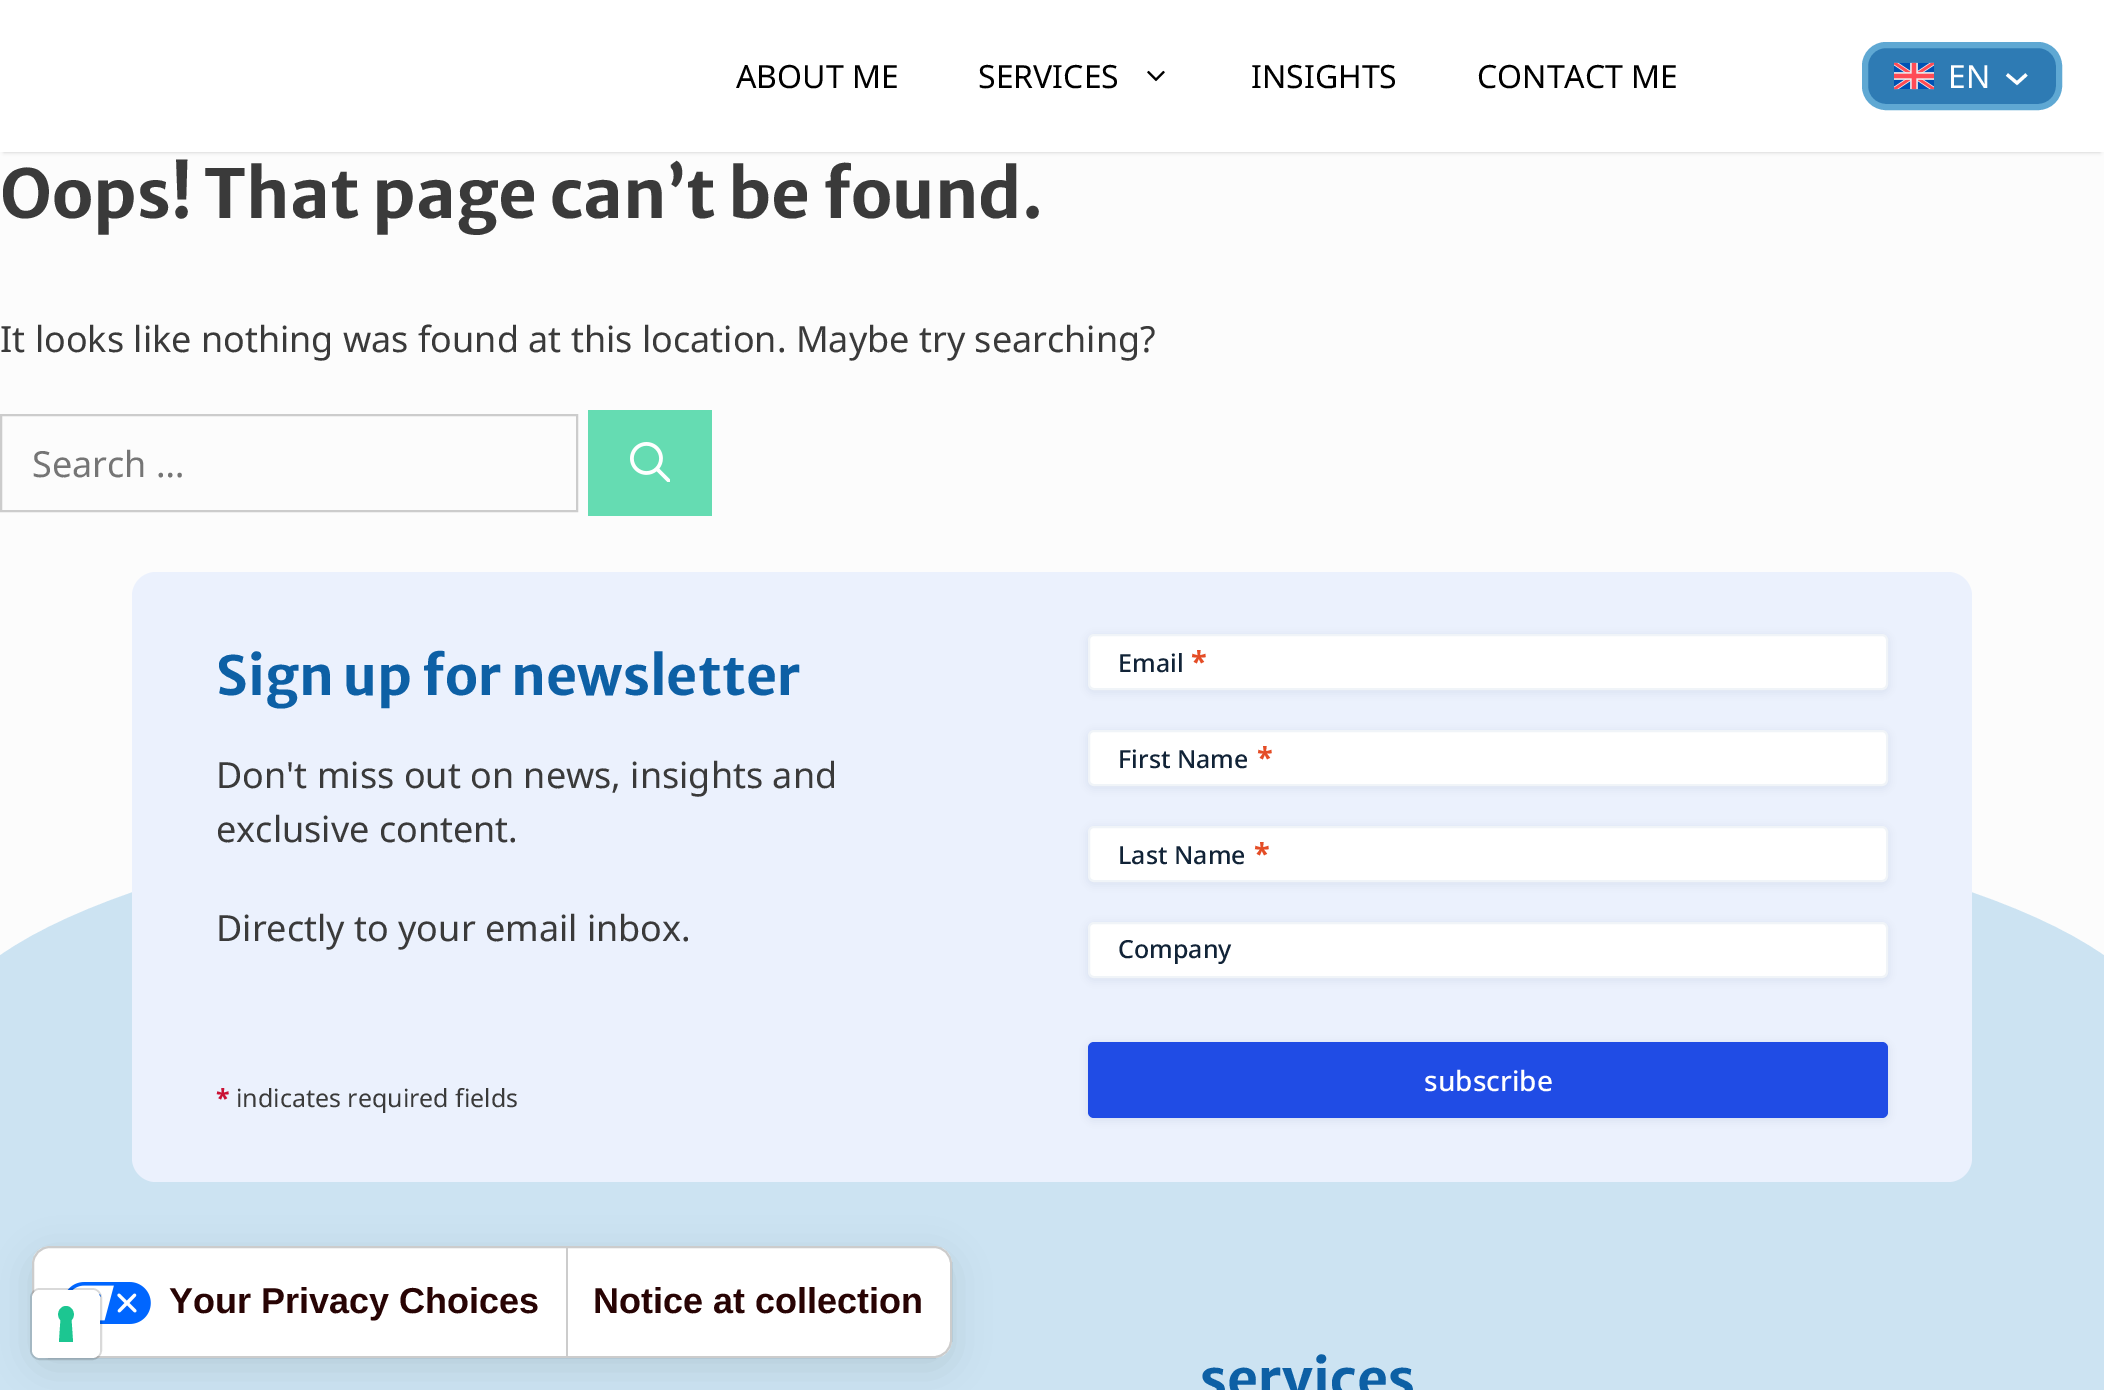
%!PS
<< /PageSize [2104 1390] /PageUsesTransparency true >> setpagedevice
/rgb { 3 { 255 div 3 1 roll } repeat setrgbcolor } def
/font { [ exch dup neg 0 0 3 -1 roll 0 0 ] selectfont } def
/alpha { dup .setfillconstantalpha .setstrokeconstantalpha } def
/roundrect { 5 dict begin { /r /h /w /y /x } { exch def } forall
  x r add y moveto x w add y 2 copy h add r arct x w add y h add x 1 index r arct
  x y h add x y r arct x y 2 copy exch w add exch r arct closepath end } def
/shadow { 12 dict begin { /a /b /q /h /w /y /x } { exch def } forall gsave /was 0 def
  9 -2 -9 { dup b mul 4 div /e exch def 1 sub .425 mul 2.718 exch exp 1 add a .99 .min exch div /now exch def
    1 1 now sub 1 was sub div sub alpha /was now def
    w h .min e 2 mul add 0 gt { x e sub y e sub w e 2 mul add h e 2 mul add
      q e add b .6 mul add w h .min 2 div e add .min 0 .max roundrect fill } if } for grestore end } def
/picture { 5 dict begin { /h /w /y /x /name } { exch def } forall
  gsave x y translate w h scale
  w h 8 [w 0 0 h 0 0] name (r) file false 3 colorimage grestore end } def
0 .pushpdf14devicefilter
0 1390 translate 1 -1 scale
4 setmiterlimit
252 252 252 rgb
0 0 2104 1390 rectfill
0 0 0 rgb
4 8 2096 144 0 2 0.2 shadow
255 255 255 rgb
0 0 2104 152 rectfill
(img/1.rgb) 1147 70 18 12 picture
46 123 180 rgb
1865 45 194 62 21 roundrect gsave fill grestore
95 168 211 rgb
6 setlinewidth
stroke
(img/2.rgb) 1894 62 40 28 picture
255 255 255 rgb
3.2 setlinewidth
2007 74.5 moveto 2017 83 lineto 2026.5 74.5 lineto stroke
204 204 204 rgb
2 setlinewidth
1 415 576 96 rectstroke
101 220 178 rgb
588 410 124 106 rectfill
(img/3.rgb) 630 442 40 40 picture
204 227 242 rgb
0 892 2104 498 rectfill
gsave
0 756 2104 200 rectclip
252 252 252 rgb
1052 777 moveto 563 777 148 851 0 955 curveto 0 755 lineto 2104 755 lineto 2104 955 lineto 1956 851 1541 777 1052 777 curveto closepath fill
grestore
235 241 253 rgb
132 572 1840 610 24 roundrect fill
18 25 97 rgb
1088 636 800 56 6 4 0.08 shadow
255 255 255 rgb
1089 635 798 54 5 roundrect gsave fill grestore
240 244 248 rgb
stroke
18 25 97 rgb
1088 732 800 56 6 4 0.08 shadow
255 255 255 rgb
1089 731 798 54 5 roundrect gsave fill grestore
240 244 248 rgb
stroke
18 25 97 rgb
1088 828 800 56 6 4 0.08 shadow
255 255 255 rgb
1089 827 798 54 5 roundrect gsave fill grestore
240 244 248 rgb
stroke
18 25 97 rgb
1088 924 800 56 6 4 0.08 shadow
255 255 255 rgb
1089 923 798 54 5 roundrect gsave fill grestore
240 244 248 rgb
stroke
18 25 97 rgb
1088 1044 800 76 6 4 0.08 shadow
32 76 229 rgb
1088 1042 800 76 6 roundrect fill
0 0 0 rgb
32 1256 920 112 18 18 0.1 shadow
255 255 255 rgb
32 1246 920 112 18 roundrect fill
0.2 alpha
0 0 0 rgb
33 1247 918 110 17 roundrect stroke
1 alpha
(img/4.rgb) 67 1282 84 42 picture
0.15 alpha
31 1289 70 70 9 roundrect stroke
1 alpha
255 255 255 rgb
32 1290 68 68 8 roundrect fill
28 198 145 rgb
66 1306 moveto 73 1306 76.5 1315.5 71.5 1320 curveto 73 1342 lineto 59 1342 lineto 60.5 1320 lineto 55.5 1315.5 59 1306 66 1306 curveto closepath eofill
204 204 204 rgb
566 1248 2 108 rectfill
/NotoSans-Regular 32 font
0 0 0 rgb
[
  [(ABOUT ME) 736 88]
  [(SERVICES) 978 88]
  [(INSIGHTS) 1251 88]
  [(CONTACT ME) 1477 88]
] { aload pop moveto show } forall
255 255 255 rgb
1948 88 moveto (EN) show
/MerriweatherSans-Bold 67.5 font
58 58 58 rgb
0 218 moveto (Oops! That page can’t be found.) show
/NotoSans-Regular 36 font
0 352 moveto (It looks like nothing was found at this location. Maybe try searching?) show
117 117 117 rgb
32 477 moveto (Search …) show
/MerriweatherSans-Bold 54 font
13 96 165 rgb
216 695 moveto (Sign up for newsletter) show
/NotoSans-Regular 36 font
58 58 58 rgb
[
  [(Don't miss out on news, insights and) 216 788]
  [(exclusive content.) 216 842]
  [(Directly to your email inbox.) 216 941]
] { aload pop moveto show } forall
/NotoSans-Bold 25 font
201 18 53 rgb
216 1107 moveto (*) show
/NotoSans-Regular 25 font
58 58 58 rgb
236 1107 moveto (indicates required fields) show
/NotoSans-Medium 25 font
17 35 55 rgb
1118 672 moveto (Email) show
/NotoSans-Bold 29 font
228 77 38 rgb
1191 672 moveto (*) show
/NotoSans-Medium 25 font
17 35 55 rgb
1118 768 moveto (First Name) show
/NotoSans-Bold 29 font
228 77 38 rgb
1257 768 moveto (*) show
/NotoSans-Medium 25 font
17 35 55 rgb
1118 864 moveto (Last Name) show
/NotoSans-Bold 29 font
228 77 38 rgb
1254 864 moveto (*) show
/NotoSans-Medium 25 font
17 35 55 rgb
1118 958 moveto (Company) show
/NotoSans-Medium 28 font
255 255 255 rgb
1424 1091 moveto (subscribe) show
/MerriweatherSans-Bold 54 font
13 96 165 rgb
1200 1398 moveto (services) show
/LiberationSans-Bold 36 font
40 4 4 rgb
169 1313 moveto (Your Privacy Choices) show
593 1313 moveto (Notice at collection) show
.poppdf14devicefilter showpage
